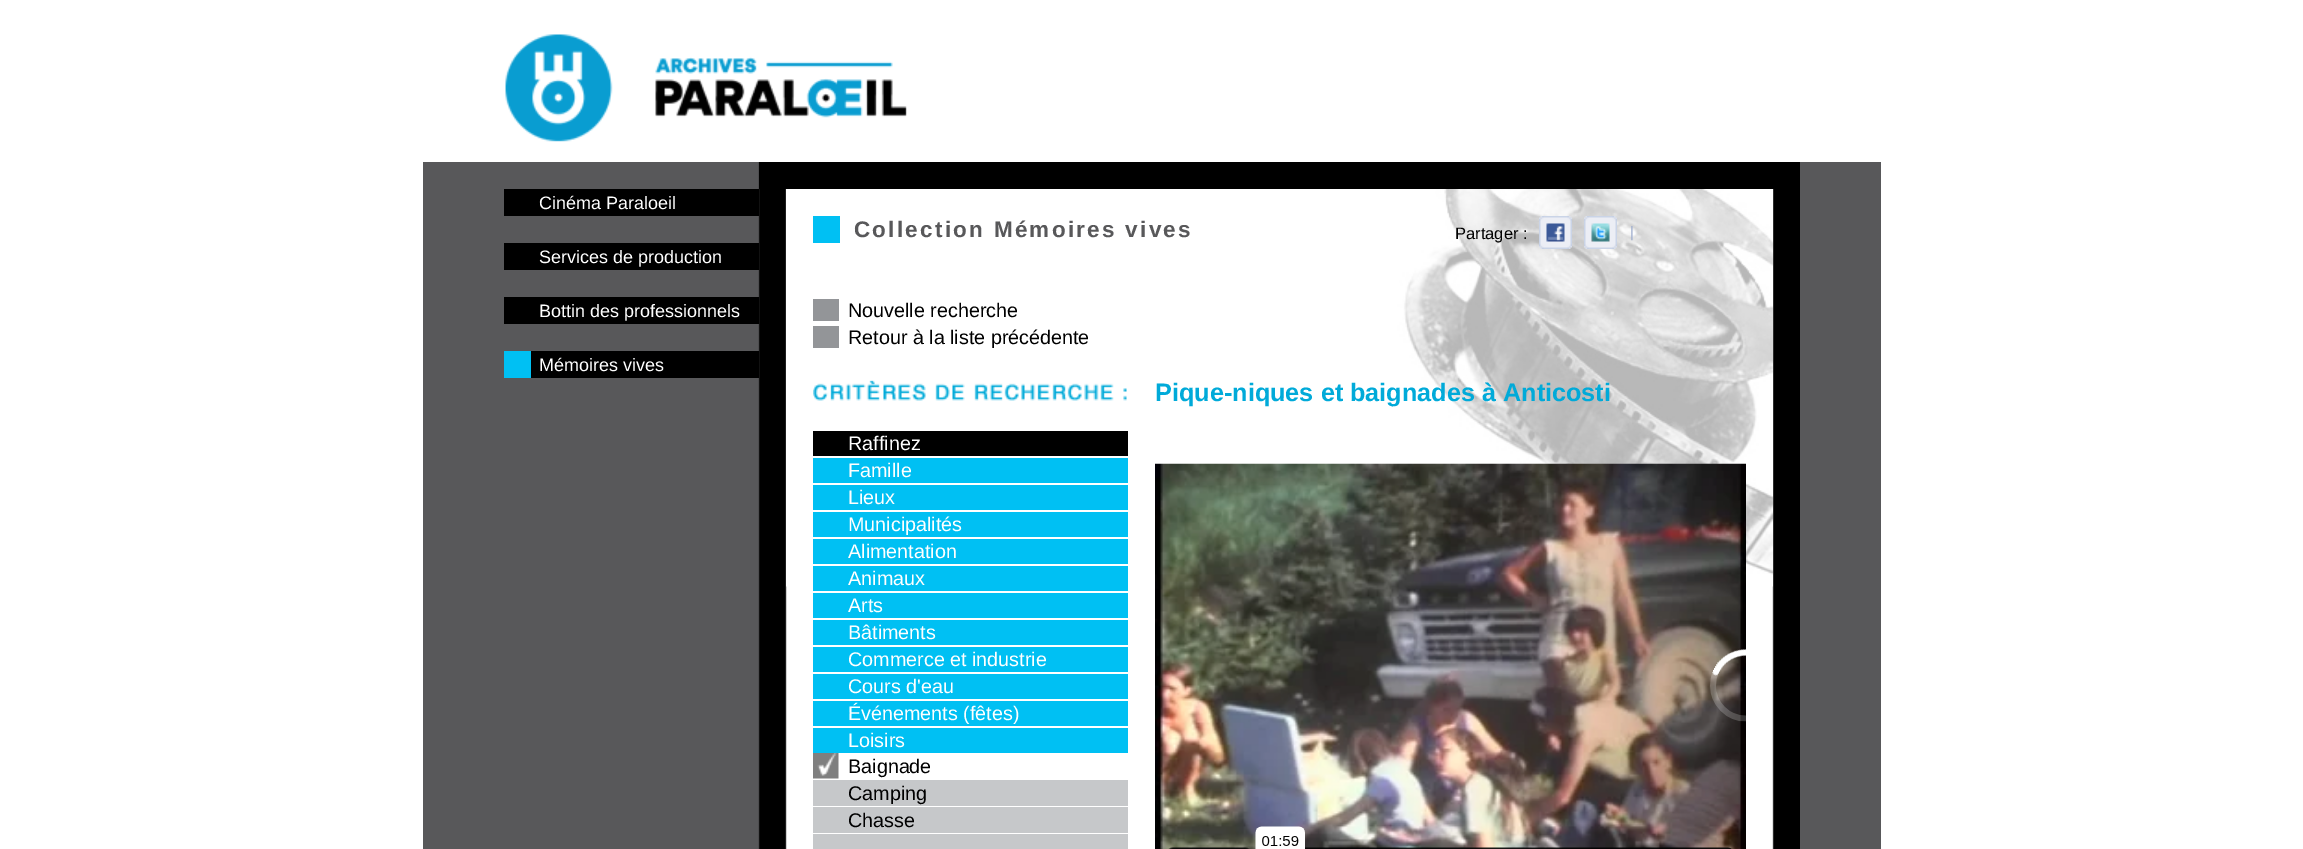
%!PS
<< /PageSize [2303 849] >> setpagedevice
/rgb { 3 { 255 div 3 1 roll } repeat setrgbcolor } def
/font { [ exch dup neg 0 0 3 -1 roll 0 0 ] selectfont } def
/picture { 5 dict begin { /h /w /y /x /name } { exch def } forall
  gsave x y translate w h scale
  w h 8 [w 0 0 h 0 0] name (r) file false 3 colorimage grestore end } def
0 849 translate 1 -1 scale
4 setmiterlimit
255 255 255 rgb
0 0 2303 849 rectfill
(img/1.rgb) 505 34 402 108 picture
88 88 90 rgb
423 162 1458 687 rectfill
(img/2.rgb) 758 162 1042 687 picture
[
  [504 189 255 27 0 0 0]
  [504 243 255 27 0 0 0]
  [504 297 255 27 0 0 0]
  [531 351 228 27 0 0 0]
  [504 351 27 27 0 192 243]
] { aload pop rgb rectfill } forall
(img/3.rgb) 786 189 987 398 picture
0 0 0 rgb
759 162 1015 27 rectfill
0 192 243 rgb
813 216 27 27 rectfill
(img/4.rgb) 1539 216 33 33 picture
(img/5.rgb) 1584 216 33 33 picture
147 149 152 rgb
813 299 26 22 rectfill
813 326 26 22 rectfill
(img/6.rgb) 813 380 314 21 picture
[
  [813 431 315 25 0 0 0]
  [813 458 315 25 0 192 243]
  [813 485 315 25 0 192 243]
  [813 512 315 25 0 192 243]
  [813 539 315 25 0 192 243]
  [813 566 315 25 0 192 243]
  [813 593 315 25 0 192 243]
  [813 620 315 25 0 192 243]
  [813 647 315 25 0 192 243]
  [813 674 315 25 0 192 243]
  [813 701 315 25 0 192 243]
  [813 728 315 25 0 192 243]
] { aload pop rgb rectfill } forall
(img/7.rgb) 813 753 26 26 picture
[
  [813 780 315 26 198 200 202]
  [813 807 315 26 198 200 202]
  [813 834 315 15 198 200 202]
] { aload pop rgb rectfill } forall
(img/8.rgb) 1155 463 591 386 picture
/LiberationSans-Regular 18 font
255 255 255 rgb
[
  [(Cinéma Paraloeil) 539 209]
  [(Services de production) 539 263]
  [(Bottin des professionnels) 539 317]
  [(Mémoires vives) 539 371]
] { aload pop moveto show } forall
/LiberationSans-Bold 22.5 font
88 88 90 rgb
854 237 moveto 2.25 0 (Collection Mémoires vives) ashow
/LiberationSans-Regular 16.5 font
0 0 0 rgb
1455 239 moveto (Partager :) show
/LiberationSans-Regular 15 font
157 172 206 rgb
1630 237 moveto (|) show
/LiberationSans-Regular 19.75 font
0 0 0 rgb
848 317 moveto (Nouvelle recherche) show
848 344 moveto (Retour à la liste précédente) show
255 255 255 rgb
[
  [(Raffinez) 848 450]
  [(Famille) 848 477]
  [(Lieux) 848 504]
  [(Municipalités) 848 531]
  [(Alimentation) 848 558]
  [(Animaux) 848 585]
  [(Arts) 848 612]
  [(Bâtiments) 848 639]
  [(Commerce et industrie) 848 666]
  [(Cours d'eau) 848 693]
  [(Événements \(fêtes\)) 848 720]
  [(Loisirs) 848 747]
] { aload pop moveto show } forall
0 0 0 rgb
[
  [(Baignade) 848 773]
  [(Camping) 848 800]
  [(Chasse) 848 827]
] { aload pop moveto show } forall
/LiberationSans-Bold 25.25 font
0 170 217 rgb
1155 401 moveto (Pique-niques et baignades à Anticosti) show
showpage
